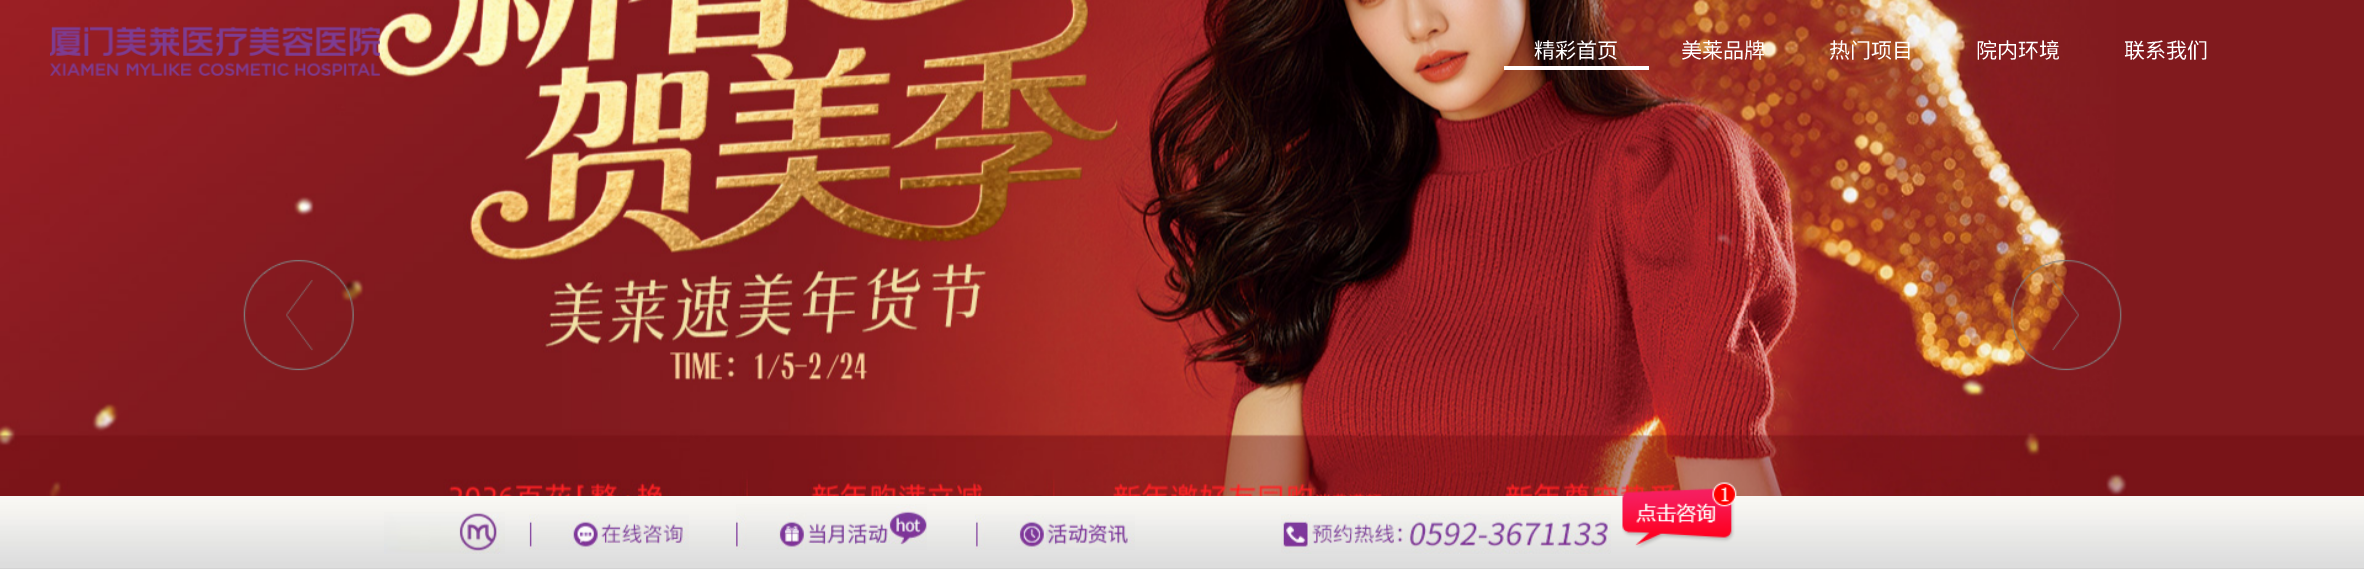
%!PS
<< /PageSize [2364 569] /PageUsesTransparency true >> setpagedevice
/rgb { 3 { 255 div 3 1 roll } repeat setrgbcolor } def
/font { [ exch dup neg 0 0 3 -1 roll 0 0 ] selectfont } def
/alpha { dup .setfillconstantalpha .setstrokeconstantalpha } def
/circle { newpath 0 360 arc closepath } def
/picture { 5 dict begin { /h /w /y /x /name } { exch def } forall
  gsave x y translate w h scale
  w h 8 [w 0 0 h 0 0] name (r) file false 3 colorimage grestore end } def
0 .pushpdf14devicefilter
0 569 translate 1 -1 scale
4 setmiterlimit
255 255 255 rgb
0 0 2364 569 rectfill
(img/1.rgb) 0 0 2364 496 picture
(img/2.rgb) 243 259 111 112 picture
(img/3.rgb) 2011 259 111 112 picture
0.1 alpha
0 0 0 rgb
1038 510 15 circle fill
1168 510 15 circle fill
1298 510 15 circle fill
1428 510 15 circle fill
1 alpha
(img/4.rgb) 50 26 330 50 picture
255 255 255 rgb
1504 66 145 4 rectfill
(img/5.rgb) 0 496 2364 73 picture
(img/6.rgb) 384 512 121 42 picture
(img/7.rgb) 529 514 160 36 picture
(img/8.rgb) 736 504 191 46 picture
(img/9.rgb) 975 514 160 36 picture
(img/10.rgb) 1281 514 330 40 picture
(img/11.rgb) 1622 482 115 66 picture
/NotoSansCJKSC-Regular 21 font
[
  [(精彩首页) 1534 58]
  [(美莱品牌) 1681 58]
  [(热门项目) 1829 58]
  [(院内环境) 1976 58]
  [(联系我们) 2124 58]
] { aload pop moveto show } forall
.poppdf14devicefilter showpage
